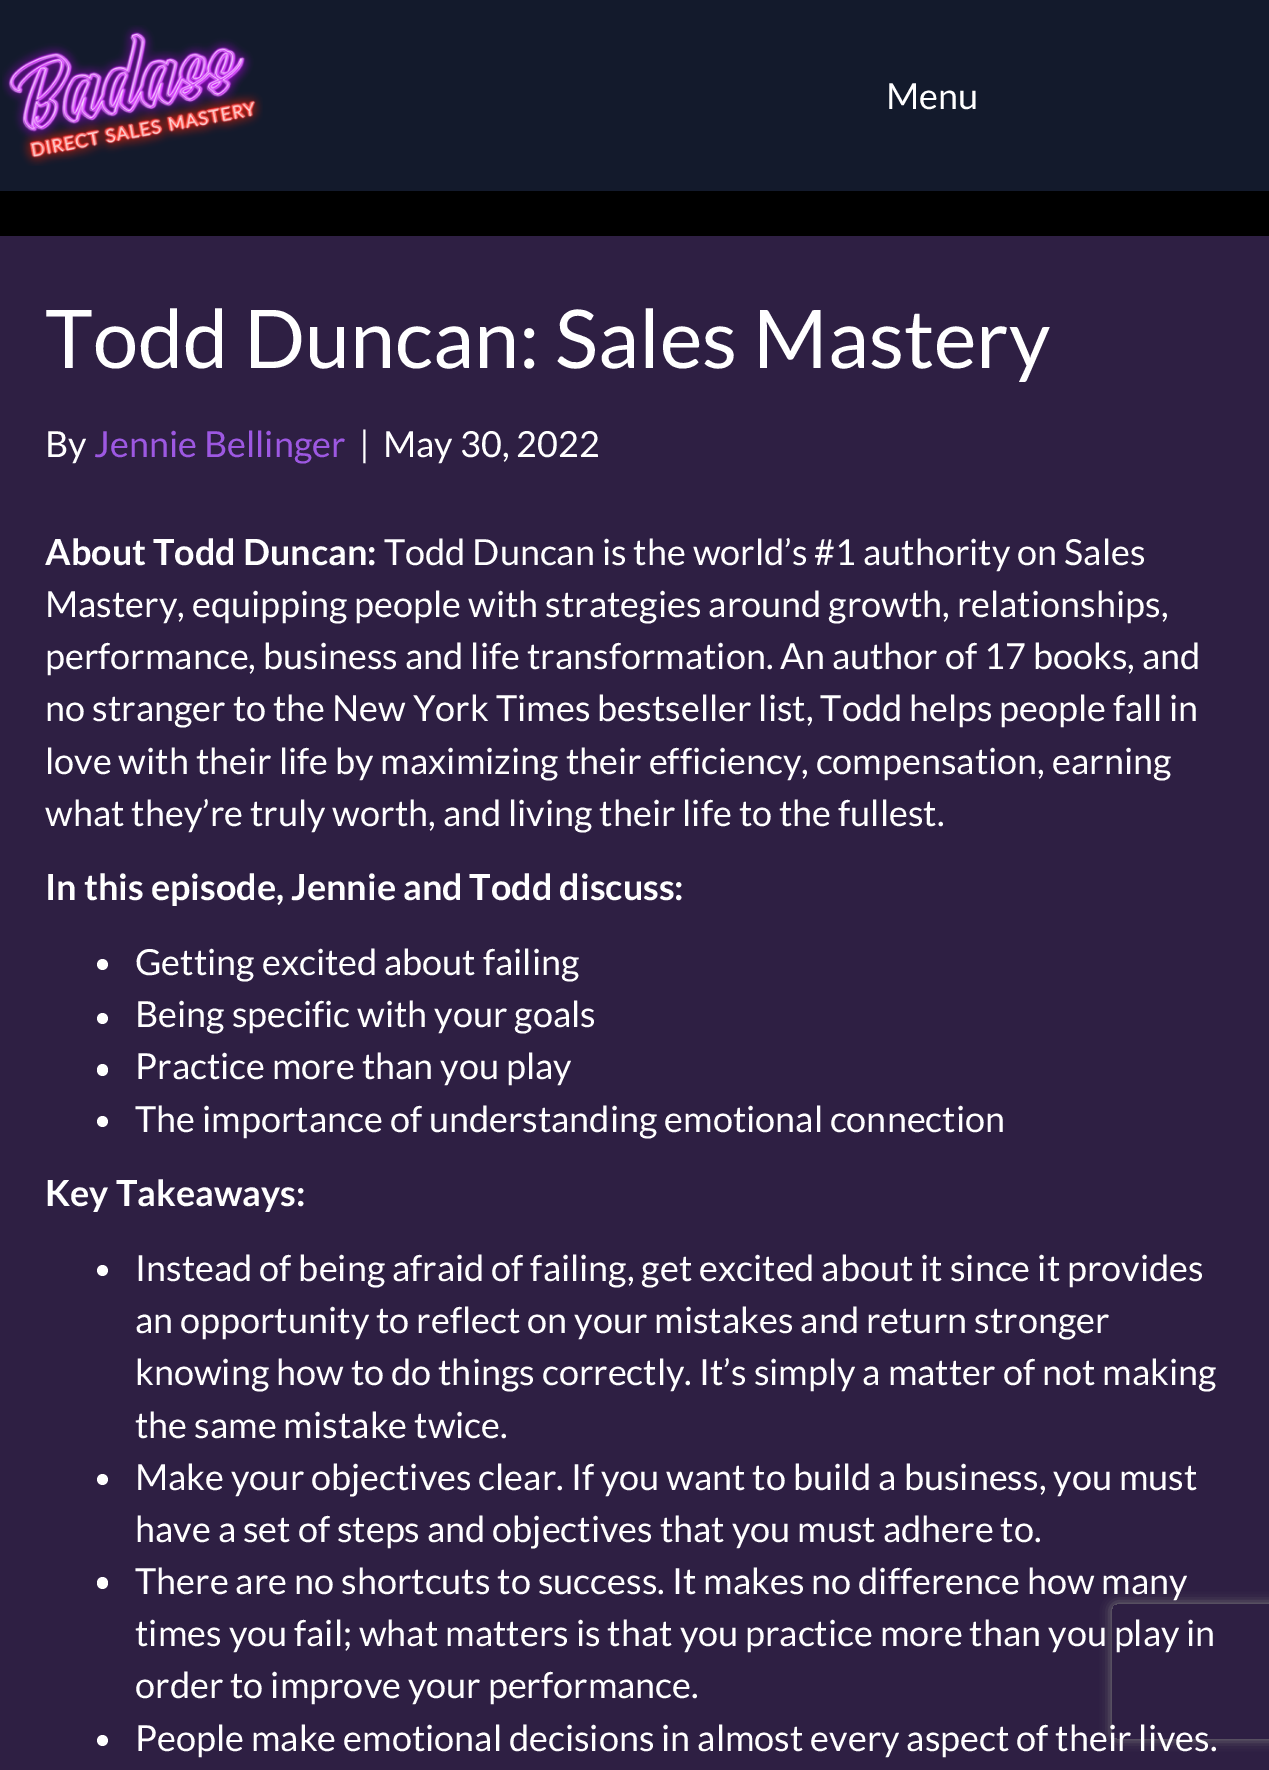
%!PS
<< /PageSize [1269 1770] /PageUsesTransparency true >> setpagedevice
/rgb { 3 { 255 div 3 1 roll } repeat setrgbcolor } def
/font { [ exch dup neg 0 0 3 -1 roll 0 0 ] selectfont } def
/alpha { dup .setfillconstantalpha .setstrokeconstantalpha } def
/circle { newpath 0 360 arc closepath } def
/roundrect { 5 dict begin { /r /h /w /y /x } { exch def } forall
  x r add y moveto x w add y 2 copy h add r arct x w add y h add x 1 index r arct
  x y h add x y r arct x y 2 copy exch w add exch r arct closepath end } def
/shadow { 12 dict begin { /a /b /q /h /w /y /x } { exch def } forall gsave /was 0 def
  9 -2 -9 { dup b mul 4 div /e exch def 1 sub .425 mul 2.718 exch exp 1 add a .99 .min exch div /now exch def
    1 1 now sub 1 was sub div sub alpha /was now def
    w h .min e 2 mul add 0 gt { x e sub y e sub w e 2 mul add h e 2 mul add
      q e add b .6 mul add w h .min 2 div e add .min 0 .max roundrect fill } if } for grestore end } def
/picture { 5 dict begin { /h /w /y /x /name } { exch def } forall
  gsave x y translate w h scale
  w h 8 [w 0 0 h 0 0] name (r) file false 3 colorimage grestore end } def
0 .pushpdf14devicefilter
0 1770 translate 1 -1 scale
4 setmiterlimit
0 0 0 rgb
0 0 1269 1770 rectfill
19 26 44 rgb
0 0 1269 191 rectfill
(img/1.rgb) 2 25 261 141 picture
46 31 67 rgb
0 236 1269 1534 rectfill
255 255 255 rgb
102.5 964.5 5.5 circle fill
102.5 1018.5 5.5 circle fill
97 1064 11 12 5.5 roundrect fill
102.5 1121.5 5.5 circle fill
102.5 1270.5 5.5 circle fill
102.5 1479.5 5.5 circle fill
97 1577 11 12 5.5 roundrect fill
102.5 1740.5 5.5 circle fill
gsave
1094 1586 moveto 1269 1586 lineto 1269 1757 lineto 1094 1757 lineto closepath 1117 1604 moveto 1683 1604 lineto 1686 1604 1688 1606 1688 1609 curveto 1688 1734 lineto 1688 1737 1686 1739 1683 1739 curveto 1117 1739 lineto 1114 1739 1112 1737 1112 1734 curveto 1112 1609 lineto 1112 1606 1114 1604 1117 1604 curveto closepath eoclip newpath
128 128 128 rgb
1112 1604 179 135 5 5.5 1 shadow
grestore
/Lato-Regular 36 font
886 109 moveto (Menu) show
/Lato-Regular 81 font
45 368 moveto (Todd Duncan: Sales Mastery) show
/Lato-Regular 36 font
45 457 moveto (By) show
157 88 226 rgb
94 457 moveto (Jennie Bellinger) show
255 255 255 rgb
359 457 moveto (|) show
383 457 moveto (May 30, 2022) show
/Lato-Bold 36 font
45 565 moveto (About Todd Duncan:) show
/Lato-Regular 36 font
[
  [(Todd Duncan is the world’s #1 authority on Sales) 384 565]
  [(Mastery, equipping people with strategies around growth, relationships,) 45 617]
  [(performance, business and life transformation. An author of 17 books, and) 45 669]
  [(no stranger to the New York Times bestseller list, Todd helps people fall in) 45 721]
  [(love with their life by maximizing their efficiency, compensation, earning) 45 774]
  [(what they’re truly worth, and living their life to the fullest.) 45 826]
] { aload pop moveto show } forall
/Lato-Bold 36 font
45 900 moveto (In this episode, Jennie and Todd discuss:) show
/Lato-Regular 36 font
[
  [(Getting excited about failing) 135 975]
  [(Being specific with your goals) 135 1027]
  [(Practice more than you play) 135 1079]
  [(The importance of understanding emotional connection) 135 1132]
] { aload pop moveto show } forall
/Lato-Bold 36 font
45 1206 moveto (Key Takeaways:) show
/Lato-Regular 36 font
[
  [(Instead of being afraid of failing, get excited about it since it provides) 135 1281]
  [(an opportunity to reflect on your mistakes and return stronger) 135 1333]
  [(knowing how to do things correctly. It’s simply a matter of not making) 135 1385]
  [(the same mistake twice.) 135 1438]
  [(Make your objectives clear. If you want to build a business, you must) 135 1490]
  [(have a set of steps and objectives that you must adhere to.) 135 1542]
  [(There are no shortcuts to success. It makes no difference how many) 135 1594]
  [(times you fail; what matters is that you practice more than you play in) 135 1646]
  [(order to improve your performance.) 135 1698]
  [(People make emotional decisions in almost every aspect of their lives.) 135 1751]
] { aload pop moveto show } forall
.poppdf14devicefilter showpage
